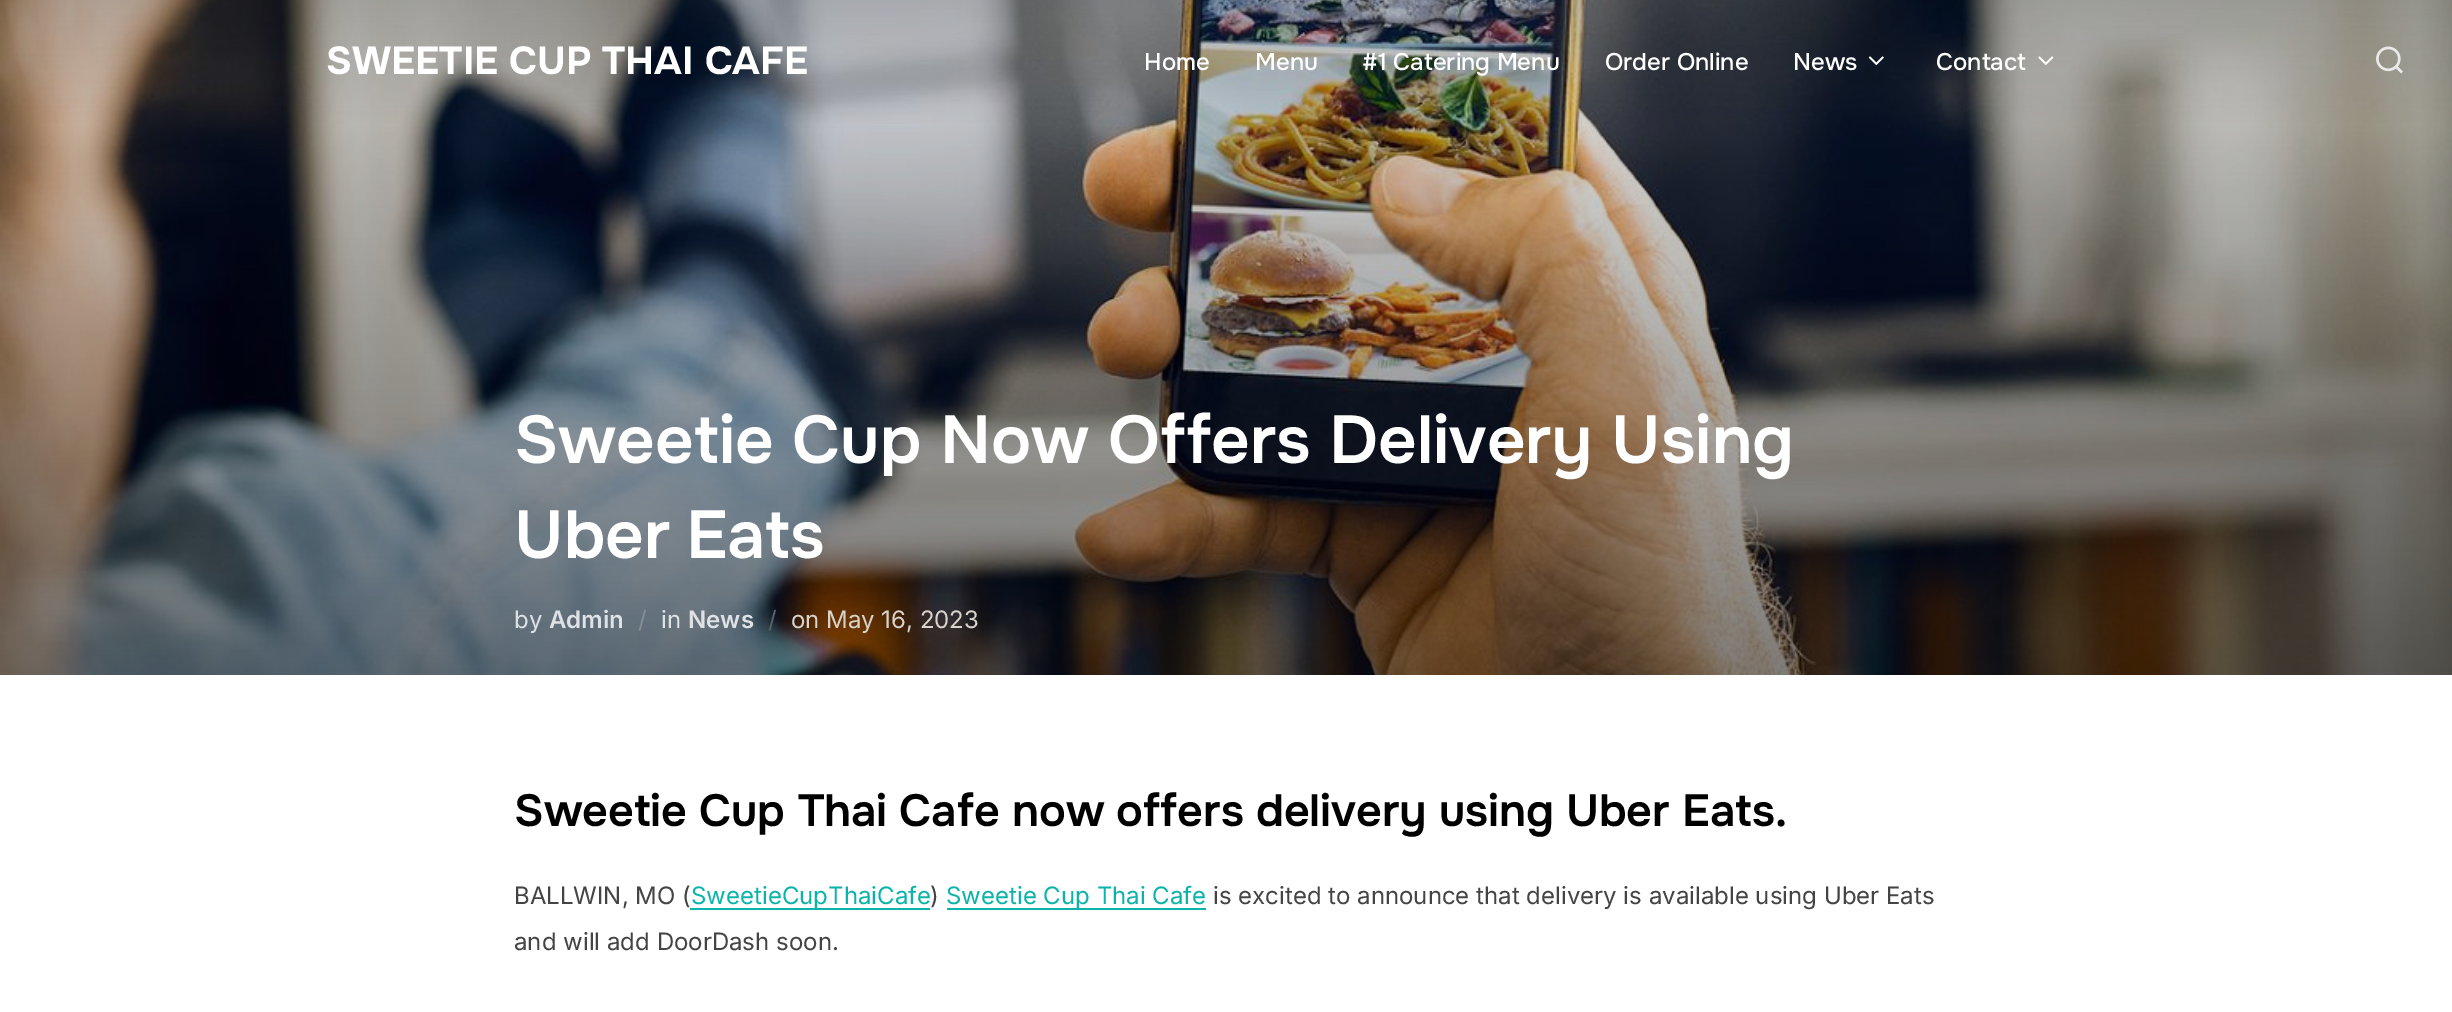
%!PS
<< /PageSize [2452 1012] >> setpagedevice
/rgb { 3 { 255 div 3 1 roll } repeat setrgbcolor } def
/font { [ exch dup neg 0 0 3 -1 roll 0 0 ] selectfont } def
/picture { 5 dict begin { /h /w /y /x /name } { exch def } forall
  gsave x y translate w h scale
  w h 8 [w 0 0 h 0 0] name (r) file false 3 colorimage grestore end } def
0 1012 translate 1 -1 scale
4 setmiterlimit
255 255 255 rgb
0 0 2452 1012 rectfill
(img/4.rgb) 0 0 2452 675 picture
(img/1.rgb) 1868 56 16 10 picture
(img/2.rgb) 2038 56 16 9 picture
(img/3.rgb) 2376 46 27 28 picture
11 180 170 rgb
690 908 240 2 rectfill
947 908 259 2 rectfill
/Onest-Bold 39 font
255 255 255 rgb
326 74 moveto (SWEETIE CUP THAI CAFE) show
/Onest-Medium 24 font
[
  [(Home) 1144 70]
  [(Menu) 1255 70]
  [(#1 Catering Menu) 1362 70]
  [(Order Online) 1605 70]
  [(News) 1793 70]
  [(Contact) 1936 70]
] { aload pop moveto show } forall
/Onest-SemiBold 67.5 font
514 463 moveto (Sweetie Cup Now Offers Delivery Using) show
514 558 moveto -3 0 32 (Uber Eats) widthshow
/Inter-Regular 24 font
223 226 228 rgb
514 628 moveto (by) show
/Inter-SemiBold 24 font
549 628 moveto (Admin) show
/Inter-Regular 24 font
132 142 149 rgb
638 628 moveto (/) show
223 226 228 rgb
661 628 moveto (in) show
/Inter-SemiBold 24 font
688 628 moveto (News) show
/Inter-Regular 24 font
89 99 105 rgb
768 628 moveto (/) show
217 211 206 rgb
791 628 moveto (on) show
826 628 moveto (May 16, 2023) show
/Onest-SemiBold 45 font
0 0 0 rgb
514 826 moveto -0.25 0 32 (Sweetie Cup Thai Cafe now offers delivery using Uber Eats.) widthshow
/Inter-Regular 24 font
68 68 68 rgb
514 904 moveto (BALLWIN, MO \() show
11 180 170 rgb
691 904 moveto (SweetieCupThaiCafe) show
68 68 68 rgb
930 904 moveto (\)) show
11 180 170 rgb
946 904 moveto (Sweetie Cup Thai Cafe) show
68 68 68 rgb
1213 904 moveto (is excited to announce that delivery is available using Uber Eats) show
514 950 moveto (and will add DoorDash soon.) show
showpage
